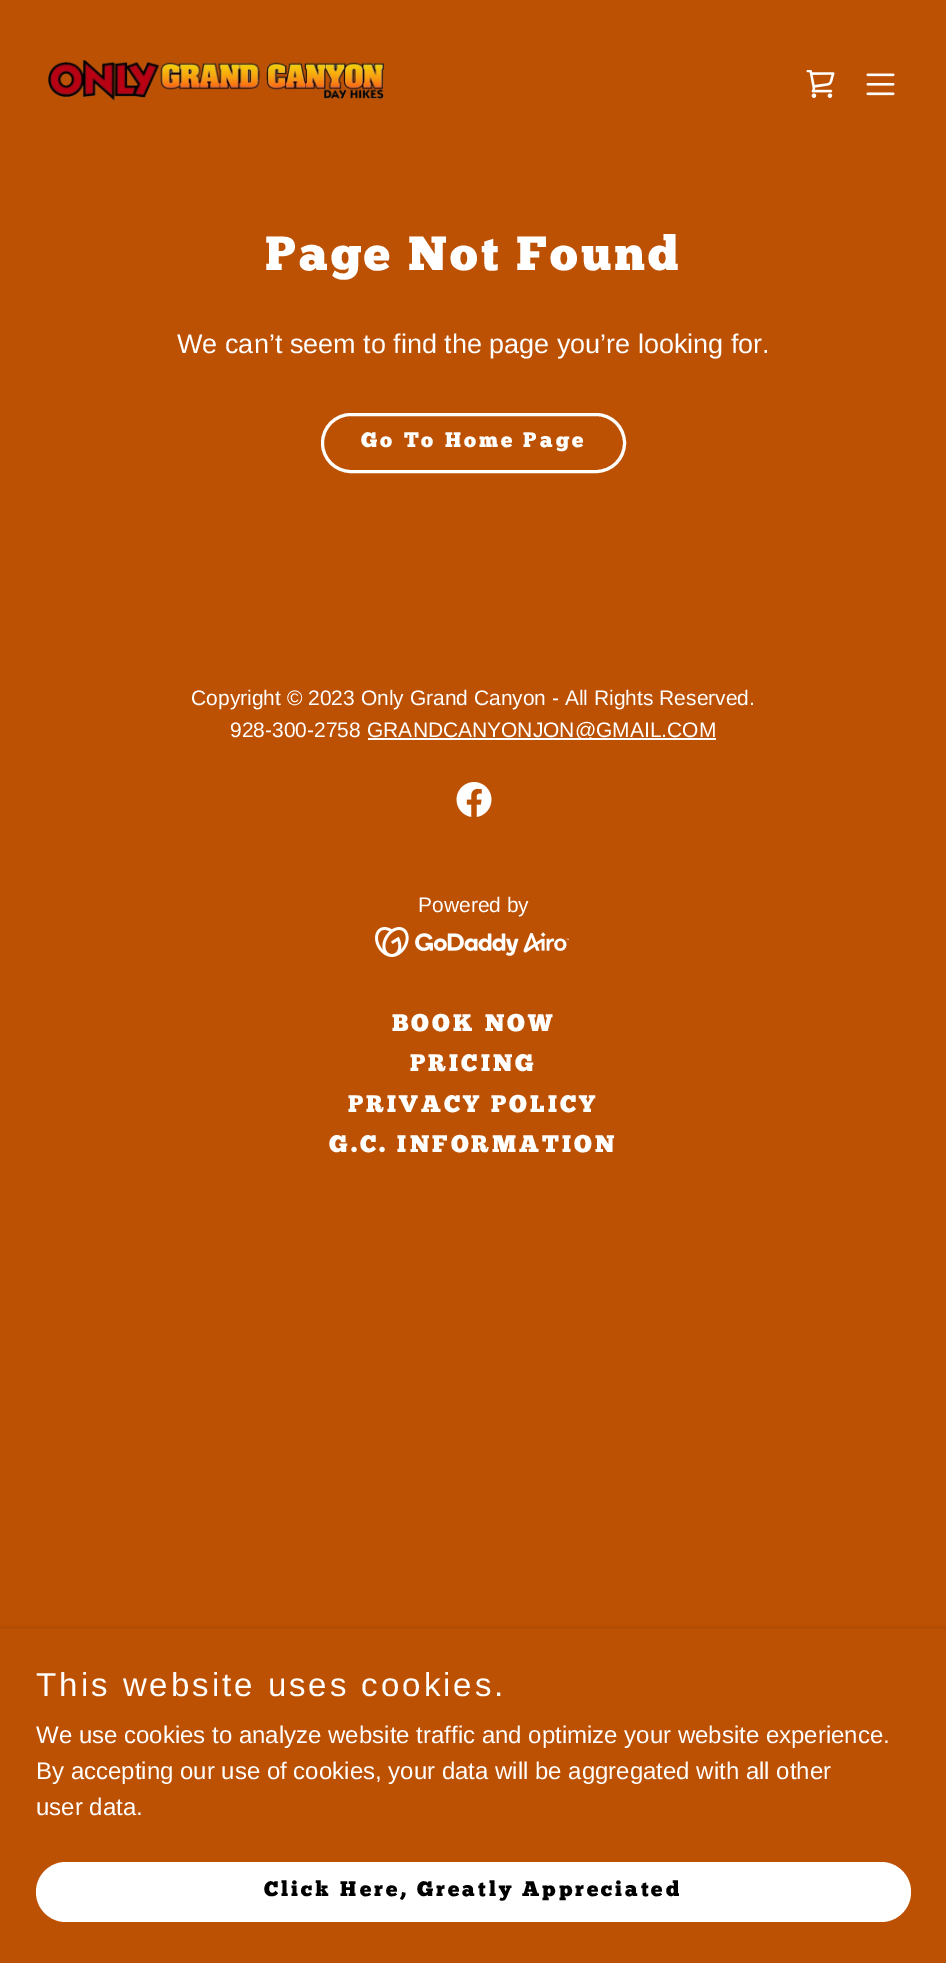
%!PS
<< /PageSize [946 1963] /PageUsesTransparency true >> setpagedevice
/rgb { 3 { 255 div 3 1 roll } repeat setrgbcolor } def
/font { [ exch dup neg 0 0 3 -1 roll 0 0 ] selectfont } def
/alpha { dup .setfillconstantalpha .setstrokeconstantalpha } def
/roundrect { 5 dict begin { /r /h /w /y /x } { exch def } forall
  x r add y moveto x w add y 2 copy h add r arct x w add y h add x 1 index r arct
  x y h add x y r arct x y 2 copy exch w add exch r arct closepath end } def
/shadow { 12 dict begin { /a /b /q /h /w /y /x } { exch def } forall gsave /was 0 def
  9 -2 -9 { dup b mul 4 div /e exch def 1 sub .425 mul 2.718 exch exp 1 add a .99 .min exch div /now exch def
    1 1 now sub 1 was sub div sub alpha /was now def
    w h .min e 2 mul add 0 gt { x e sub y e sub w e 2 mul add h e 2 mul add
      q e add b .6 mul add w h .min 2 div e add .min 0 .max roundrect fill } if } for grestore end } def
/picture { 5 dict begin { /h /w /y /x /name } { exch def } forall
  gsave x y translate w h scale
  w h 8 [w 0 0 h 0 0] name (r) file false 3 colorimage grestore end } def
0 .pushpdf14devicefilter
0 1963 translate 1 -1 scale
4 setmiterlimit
189 81 3 rgb
0 0 946 1963 rectfill
(img/1.rgb) 48 60 336 41 picture
(img/2.rgb) 806 70 29 28 picture
(img/3.rgb) 866 73 29 23 picture
255 255 255 rgb
3 setlinewidth
322.5 414.5 302 57 28.5 roundrect stroke
368 738 348 2 rectfill
(img/4.rgb) 456 782 36 35 picture
(img/5.rgb) 375 927 194 30 picture
gsave
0 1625 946 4 rectclip
0 0 0 rgb
0 1632 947 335 0 4.5 0.3 shadow
grestore
36 1862 875 60 30 roundrect fill
/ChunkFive-Regular 48 font
265 270 moveto 3 0 (Page Not Found) ashow
/LiberationSans-Regular 27 font
177 353 moveto (We can’t seem to find the page you’re looking for.) show
/ChunkFive-Regular 21 font
361 447 moveto 3 0 (Go To Home Page) ashow
/LiberationSans-Regular 21 font
[
  [(Copyright © 2023 Only Grand Canyon - All Rights Reserved.) 191 705]
  [(928-300-2758) 230 737]
  [(GRANDCANYONJON@GMAIL.COM) 367 737]
  [(Powered by) 418 912]
] { aload pop moveto show } forall
/ChunkFive-Regular 24 font
392 1031 moveto 3 0 (BOOK NOW) ashow
410 1071 moveto 3 0 (PRICING) ashow
348 1112 moveto 3 0 (PRIVACY POLICY) ashow
329 1152 moveto 3 0 (G.C. INFORMATION) ashow
/LiberationSans-Regular 33 font
36 1696 moveto 3 0 (This website uses cookies.) ashow
/LiberationSans-Regular 24 font
[
  [(We use cookies to analyze website traffic and optimize your website experience.) 36 1743]
  [(By accepting our use of cookies, your data will be aggregated with all other) 36 1779]
  [(user data.) 36 1815]
] { aload pop moveto show } forall
/ChunkFive-Regular 21 font
0 0 0 rgb
264 1896 moveto 3 0 (Click Here, Greatly Appreciated) ashow
.poppdf14devicefilter showpage
